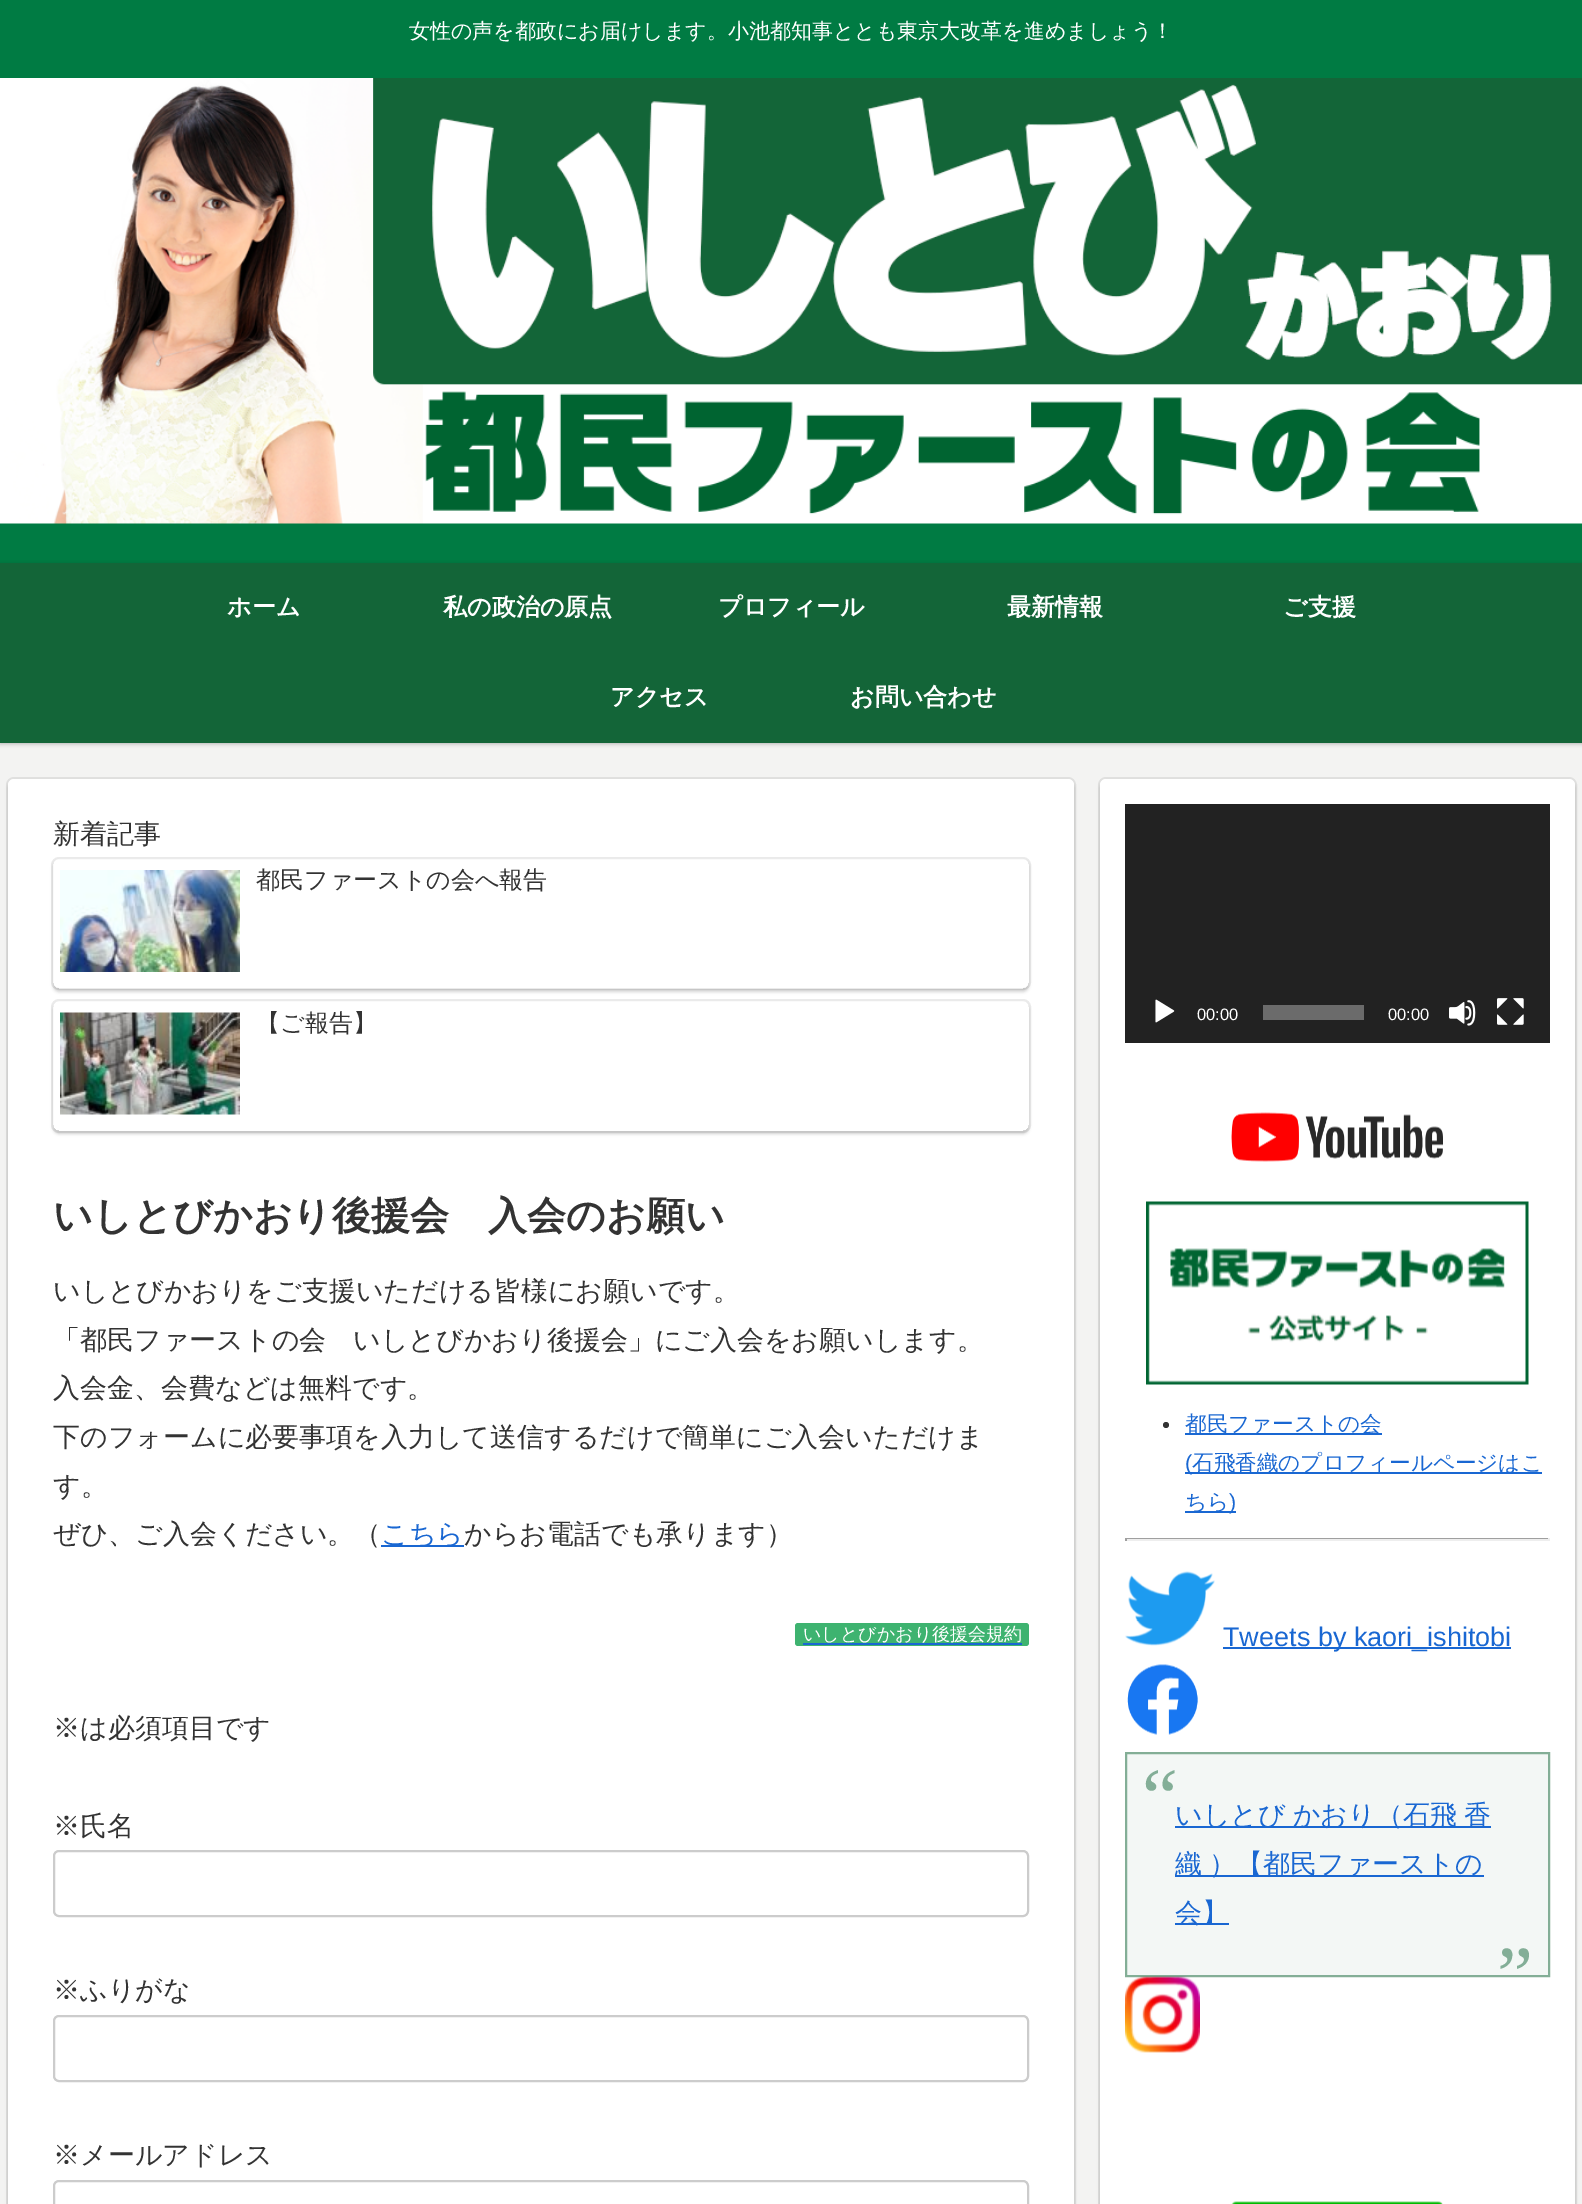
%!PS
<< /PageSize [1582 2204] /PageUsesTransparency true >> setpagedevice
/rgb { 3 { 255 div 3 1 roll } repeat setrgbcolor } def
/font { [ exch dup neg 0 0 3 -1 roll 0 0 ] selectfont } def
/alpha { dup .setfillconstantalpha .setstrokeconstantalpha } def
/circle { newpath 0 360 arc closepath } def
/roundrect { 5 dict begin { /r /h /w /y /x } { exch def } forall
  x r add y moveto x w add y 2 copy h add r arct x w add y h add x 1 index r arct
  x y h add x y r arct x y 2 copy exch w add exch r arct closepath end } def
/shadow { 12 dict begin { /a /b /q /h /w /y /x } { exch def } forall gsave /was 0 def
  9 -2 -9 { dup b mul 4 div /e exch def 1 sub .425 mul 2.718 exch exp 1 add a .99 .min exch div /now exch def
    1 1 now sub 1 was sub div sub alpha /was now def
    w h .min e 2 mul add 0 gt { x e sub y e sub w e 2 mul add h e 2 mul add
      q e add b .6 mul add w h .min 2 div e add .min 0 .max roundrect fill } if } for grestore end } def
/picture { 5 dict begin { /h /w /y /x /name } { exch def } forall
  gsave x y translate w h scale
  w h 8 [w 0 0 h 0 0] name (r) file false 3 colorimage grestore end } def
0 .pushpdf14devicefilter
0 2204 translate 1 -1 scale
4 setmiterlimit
243 243 242 rgb
0 0 1582 2204 rectfill
0 123 67 rgb
0 0 1582 563 rectfill
(img/1.rgb) 0 78 1582 446 picture
0 0 0 rgb
0 564 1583 180 0 2 0.25 shadow
19 101 56 rgb
0 563 1582 180 rectfill
224 224 223 rgb
2 setlinewidth
7 778 1068 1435 7 roundrect stroke
0 0 0 rgb
8 782 1066 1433 6 1.5 0.16 shadow
255 255 255 rgb
8 779 1066 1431 6 roundrect fill
235 235 235 rgb
52 858 978 131 7 roundrect stroke
gsave
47 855 moveto 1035 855 lineto 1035 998 lineto 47 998 lineto closepath 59 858 moveto 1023 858 lineto 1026.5 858 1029 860.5 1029 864 curveto 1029 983 lineto 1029 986.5 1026.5 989 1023 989 curveto 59 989 lineto 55.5 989 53 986.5 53 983 curveto 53 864 lineto 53 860.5 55.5 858 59 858 curveto closepath eoclip newpath
0 0 0 rgb
53 861 976 131 6 1.5 0.16 shadow
grestore
(img/2.rgb) 60 870 180 102 picture
52 1000 978 132 7 roundrect stroke
gsave
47 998 moveto 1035 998 lineto 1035 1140 lineto 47 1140 lineto closepath 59 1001 moveto 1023 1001 lineto 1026.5 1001 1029 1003.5 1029 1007 curveto 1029 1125 lineto 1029 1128.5 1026.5 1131 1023 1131 curveto 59 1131 lineto 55.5 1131 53 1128.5 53 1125 curveto 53 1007 lineto 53 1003.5 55.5 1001 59 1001 curveto closepath eoclip newpath
0 0 0 rgb
53 1004 976 130 6 1.5 0.16 shadow
grestore
(img/3.rgb) 60 1012 180 103 picture
25 103 210 rgb
381 1545 83 2 rectfill
62 179 112 rgb
795 1623 234 23 3 roundrect fill
25 103 210 rgb
803 1643 219 2 rectfill
204 204 204 rgb
54 1851 974 65 5 roundrect stroke
54 2016 974 65 5 roundrect stroke
54 2181 974 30 5 roundrect stroke
224 224 223 rgb
1099 778 477 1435 7 roundrect stroke
0 0 0 rgb
1100 782 475 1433 6 1.5 0.16 shadow
255 255 255 rgb
1100 779 475 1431 6 roundrect fill
34 34 34 rgb
1125 804 425 239 rectfill
(img/4.rgb) 1155 999 20 24 picture
107 107 107 rgb
1263 1005 101 15 rectfill
(img/5.rgb) 1449 1000 27 26 picture
(img/6.rgb) 1497 998 27 27 picture
(img/7.rgb) 1231 1112 212 50 picture
(img/8.rgb) 1146 1201 383 184 picture
51 51 51 rgb
1166 1425 3 circle fill
[
  [1185 1433 197 2 25 103 210]
  [1185 1472 357 2 25 103 210]
  [1185 1511 51 2 25 103 210]
  [1125 1538 425 1 159 159 159]
  [1548 1538 2 3 238 238 238]
  [1125 1539 425 2 238 238 238]
  [1125 1538 2 3 159 159 159]
] { aload pop rgb rectfill } forall
(img/9.rgb) 1125 1571 90 75 picture
25 103 210 rgb
1223 1647 288 2 rectfill
(img/10.rgb) 1127 1664 71 71 picture
(img/11.rgb) 1125 1976 75 77 picture
0.05 alpha
19 101 56 rgb
1125 1752 425 225 rectfill
0.5 alpha
1126 1753 423 223 rectstroke
1 alpha
[
  [1175 1826 316 2 25 103 210]
  [1175 1875 309 2 25 103 210]
  [1175 1923 54 2 25 103 210]
] { aload pop rgb rectfill } forall
(img/12.rgb) 1231 2201 212 3 picture
/WenQuanYiZenHei-Medium 21 font
255 255 255 rgb
409 38 moveto (女性の声を都政にお届けします。小池都知事ととも東京大改革を進めましょう！) show
/WenQuanYiZenHei-Bold 24 font
[
  [(ホーム) 227 615]
  [(私の政治の原点) 443 615]
  [(プロフィール) 718 615]
  [(最新情報) 1007 615]
  [(ご支援) 1283 615]
  [(アクセス) 610 705]
  [(お問い合わせ) 850 705]
] { aload pop moveto show } forall
/WenQuanYiZenHei-Medium 27 font
51 51 51 rgb
53 843 moveto (新着記事) show
/WenQuanYiZenHei-Medium 24 font
256 888 moveto (都民ファーストの会へ報告) show
256 1031 moveto (【ご報告】) show
/WenQuanYiZenHei-Bold 39 font
53 1229 moveto (いしとびかおり後援会　入会のお願い) show
/WenQuanYiZenHei-Medium 27 font
[
  [(いしとびかおりをご支援いただける皆様にお願いです。) 53 1300]
  [(「都民ファーストの会　いしとびかおり後援会」にご入会をお願いします。) 53 1349]
  [(入会金、会費などは無料です。) 53 1397]
  [(下のフォームに必要事項を入力して送信するだけで簡単にご入会いただけま) 53 1446]
  [(す。) 53 1495]
  [(ぜひ、ご入会ください。（) 53 1543]
] { aload pop moveto show } forall
25 103 210 rgb
381 1543 moveto (こちら) show
51 51 51 rgb
464 1543 moveto (からお電話でも承ります）) show
/WenQuanYiZenHei-Medium 18 font
255 255 255 rgb
803 1640 moveto (いしとびかおり後援会規約) show
/WenQuanYiZenHei-Medium 27 font
51 51 51 rgb
[
  [(※は必須項目です) 53 1737]
  [(※氏名) 53 1835]
  [(※ふりがな) 53 1999]
  [(※メールアドレス) 53 2164]
] { aload pop moveto show } forall
/LiberationSans-Regular 16.5 font
255 255 255 rgb
1197 1020 moveto (00:00) show
1388 1020 moveto (00:00) show
/WenQuanYiZenHei-Medium 21.6 font
25 103 210 rgb
1185 1431 moveto (都民ファーストの会) show
/LiberationSans-Regular 21.6 font
1185 1470 moveto (\() show
/WenQuanYiZenHei-Medium 21.6 font
1192 1470 moveto (石飛香織のプロフィールページはこ) show
1185 1509 moveto (ちら) show
/LiberationSans-Regular 21.6 font
1229 1509 moveto (\)) show
/LiberationSans-Regular 27 font
1223 1646 moveto (Tweets by kaori_ishitobi) show
/LiberationSerif-Regular 81 font
131 174 151 rgb
1142 1824 moveto (“) show
/WenQuanYiZenHei-Medium 27 font
25 103 210 rgb
1175 1824 moveto -1 0 32 (いしとび かおり（石飛 香) widthshow
1175 1873 moveto -1 0 32 (織 ）【都民ファーストの) widthshow
1175 1922 moveto (会】) show
/LiberationSerif-Regular 81 font
131 174 151 rgb
1497 2002 moveto (”) show
.poppdf14devicefilter showpage
